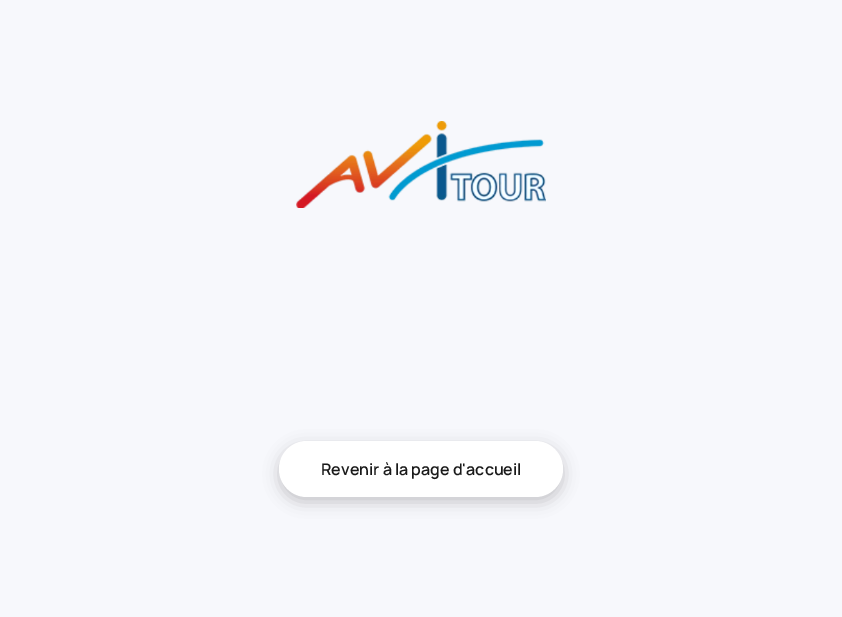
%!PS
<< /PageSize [842 617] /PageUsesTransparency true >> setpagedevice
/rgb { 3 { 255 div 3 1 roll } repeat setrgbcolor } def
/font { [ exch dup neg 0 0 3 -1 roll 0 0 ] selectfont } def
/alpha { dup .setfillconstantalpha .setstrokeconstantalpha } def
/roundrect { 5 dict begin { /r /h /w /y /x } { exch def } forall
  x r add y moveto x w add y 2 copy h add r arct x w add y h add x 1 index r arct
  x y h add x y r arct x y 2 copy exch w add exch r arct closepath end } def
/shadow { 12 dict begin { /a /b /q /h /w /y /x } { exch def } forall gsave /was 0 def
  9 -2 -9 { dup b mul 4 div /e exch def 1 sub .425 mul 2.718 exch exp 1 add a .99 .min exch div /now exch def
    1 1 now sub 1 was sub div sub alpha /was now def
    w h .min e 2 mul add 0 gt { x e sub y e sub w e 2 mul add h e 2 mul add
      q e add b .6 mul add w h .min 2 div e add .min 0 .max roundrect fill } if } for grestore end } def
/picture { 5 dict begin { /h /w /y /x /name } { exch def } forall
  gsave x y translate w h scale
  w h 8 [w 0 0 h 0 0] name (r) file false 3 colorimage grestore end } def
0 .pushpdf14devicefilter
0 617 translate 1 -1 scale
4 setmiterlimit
247 248 252 rgb
0 0 842 617 rectfill
(img/1.rgb) 296 121 250 87 picture
0 0 0 rgb
279 446 284 56 28 7.5 0.2 shadow
255 255 255 rgb
279 441 284 56 28 roundrect fill
/Manrope-ExtraLight 16 font
26 26 26 rgb
321 475 moveto (Revenir à la page d'accueil) show
.poppdf14devicefilter showpage
